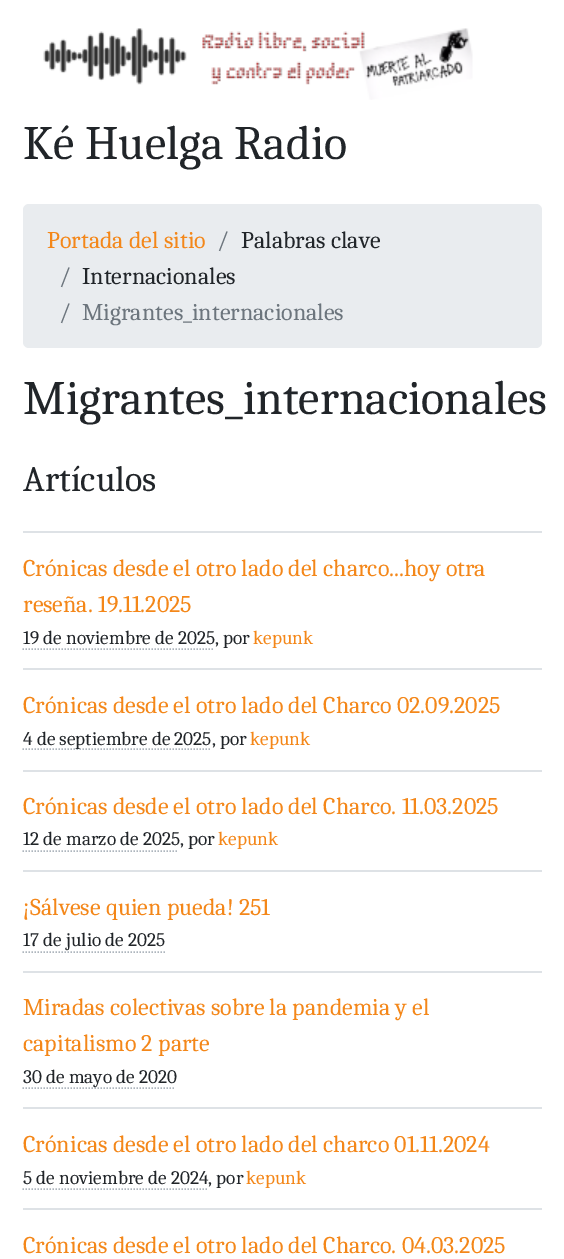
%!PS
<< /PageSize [564 1259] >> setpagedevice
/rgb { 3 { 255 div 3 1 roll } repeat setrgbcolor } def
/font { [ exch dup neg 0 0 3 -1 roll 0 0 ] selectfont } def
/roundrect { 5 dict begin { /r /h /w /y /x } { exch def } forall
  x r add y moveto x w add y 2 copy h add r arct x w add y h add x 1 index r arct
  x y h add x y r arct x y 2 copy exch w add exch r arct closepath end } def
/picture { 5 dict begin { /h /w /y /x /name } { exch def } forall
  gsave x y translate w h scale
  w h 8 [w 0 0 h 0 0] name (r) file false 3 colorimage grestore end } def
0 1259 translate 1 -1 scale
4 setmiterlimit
255 255 255 rgb
0 0 564 1259 rectfill
(img/1.rgb) 43 28 430 72 picture
233 236 239 rgb
23 204 519 144 6 roundrect fill
222 226 230 rgb
23 531 519 2 rectfill
173 181 189 rgb
1.5 setlinewidth
[1.5 1.5] 0 setdash
22.5 649 moveto 214.5 649 lineto stroke
222 226 230 rgb
23 668 519 2 rectfill
173 181 189 rgb
22.5 749 moveto 210 749 lineto stroke
222 226 230 rgb
23 770 519 2 rectfill
173 181 189 rgb
22.5 851 moveto 178.5 851 lineto stroke
222 226 230 rgb
23 870 519 2 rectfill
173 181 189 rgb
22.5 952 moveto 165 952 lineto stroke
222 226 230 rgb
23 971 519 2 rectfill
173 181 189 rgb
22.5 1088 moveto 175.5 1088 lineto stroke
222 226 230 rgb
23 1107 519 2 rectfill
173 181 189 rgb
22.5 1189 moveto 207 1189 lineto stroke
222 226 230 rgb
23 1208 519 2 rectfill
/Caladea-Regular 48 font
33 37 41 rgb
23 159 moveto (Ké Huelga Radio) show
/Caladea-Regular 24 font
244 135 25 rgb
47 248 moveto (Portada del sitio) show
108 117 125 rgb
217 248 moveto (/) show
33 37 41 rgb
241 248 moveto (Palabras clave) show
108 117 125 rgb
59 284 moveto (/) show
33 37 41 rgb
82 284 moveto (Internacionales) show
108 117 125 rgb
59 320 moveto (/) show
82 320 moveto (Migrantes_internacionales) show
/Caladea-Regular 48 font
33 37 41 rgb
23 414 moveto (Migrantes_internacionales) show
/Caladea-Regular 36 font
23 491 moveto (Artículos) show
/Caladea-Regular 24 font
244 135 25 rgb
23 576 moveto (Crónicas desde el otro lado del charco...hoy otra) show
23 612 moveto (reseña. 19.11.2025) show
/Caladea-Regular 19.25 font
33 37 41 rgb
23 644 moveto (19 de noviembre de 2025, por) show
244 135 25 rgb
253 644 moveto (kepunk) show
/Caladea-Regular 24 font
23 713 moveto (Crónicas desde el otro lado del Charco 02.09.2025) show
/Caladea-Regular 19.25 font
33 37 41 rgb
23 745 moveto (4 de septiembre de 2025, por) show
244 135 25 rgb
250 745 moveto (kepunk) show
/Caladea-Regular 24 font
23 814 moveto (Crónicas desde el otro lado del Charco. 11.03.2025) show
/Caladea-Regular 19.25 font
33 37 41 rgb
23 845 moveto (12 de marzo de 2025, por) show
244 135 25 rgb
218 845 moveto (kepunk) show
/Caladea-Regular 24 font
23 915 moveto (¡Sálvese quien pueda! 251) show
/Caladea-Regular 19.25 font
33 37 41 rgb
23 946 moveto (17 de julio de 2025) show
/Caladea-Regular 24 font
244 135 25 rgb
23 1015 moveto (Miradas colectivas sobre la pandemia y el) show
23 1051 moveto (capitalismo 2 parte) show
/Caladea-Regular 19.25 font
33 37 41 rgb
23 1083 moveto (30 de mayo de 2020) show
/Caladea-Regular 24 font
244 135 25 rgb
23 1152 moveto (Crónicas desde el otro lado del charco 01.11.2024) show
/Caladea-Regular 19.25 font
33 37 41 rgb
23 1184 moveto (5 de noviembre de 2024, por) show
244 135 25 rgb
246 1184 moveto (kepunk) show
/Caladea-Regular 24 font
23 1253 moveto (Crónicas desde el otro lado del Charco. 04.03.2025) show
showpage
